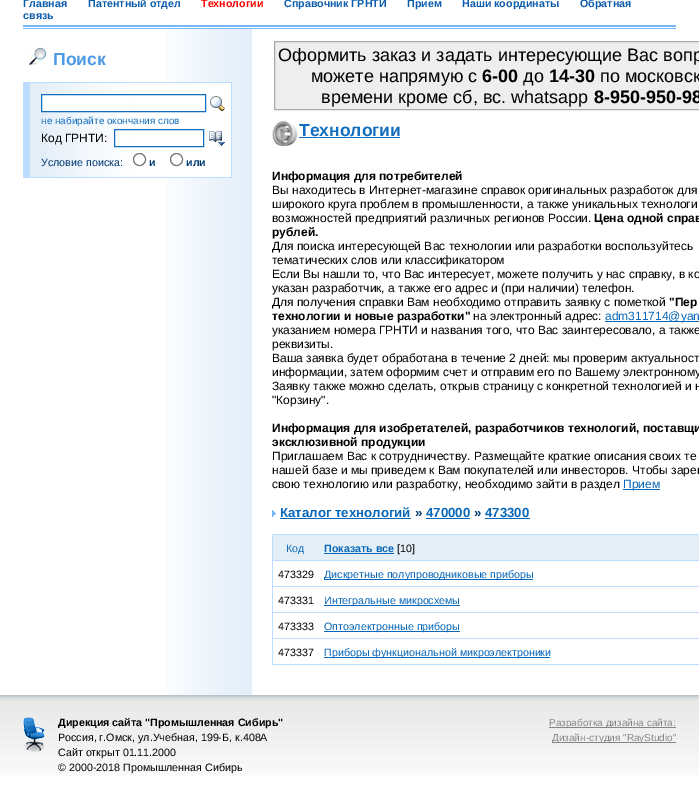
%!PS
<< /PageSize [699 794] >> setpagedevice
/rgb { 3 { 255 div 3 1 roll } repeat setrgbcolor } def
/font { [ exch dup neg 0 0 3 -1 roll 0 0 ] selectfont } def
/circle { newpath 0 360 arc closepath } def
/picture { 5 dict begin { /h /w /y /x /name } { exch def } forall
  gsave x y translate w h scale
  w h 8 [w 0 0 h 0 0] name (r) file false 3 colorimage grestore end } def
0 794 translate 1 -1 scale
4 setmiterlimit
255 255 255 rgb
0 0 699 794 rectfill
(img/1.rgb) 23 25 653 4 picture
(img/2.rgb) 167 29 85 666 picture
(img/3.rgb) 28 47 20 18 picture
187 221 255 rgb
23 82 209 96 rectfill
227 238 247 rgb
30 83 17 94 rectfill
(img/4.rgb) 47 83 184 94 picture
255 255 255 rgb
42 95 84 16 rectfill
17 110 190 rgb
41.5 94.5 164 17 rectstroke
(img/5.rgb) 210 96 15 15 picture
255 255 255 rgb
115 130 11 16 rectfill
17 110 190 rgb
114.5 129.5 89 17 rectstroke
(img/6.rgb) 209 131 16 15 picture
118 118 118 rgb
139.5 159.5 6 circle stroke
176.5 159.5 6 circle stroke
238 238 238 rgb
274.5 41.5 moveto 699.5 41.5 lineto 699.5 109.5 lineto 274.5 109.5 lineto closepath gsave fill grestore
170 170 170 rgb
stroke
(img/7.rgb) 272 120 26 26 picture
[
  [299 137 101 1 17 110 190]
  [605 321 94 1 7 103 185]
  [623 489 37 1 7 103 185]
] { aload pop rgb rectfill } forall
(img/8.rgb) 272 510 4 7 picture
[
  [280 518 131 1 7 103 185]
  [426 518 44 1 7 103 185]
  [485 518 45 1 7 103 185]
  [272 534 427 131 187 221 255]
  [273 535 426 25 227 238 247]
  [324 553 70 1 7 103 185]
  [273 561 426 25 255 255 255]
  [324 579 209 1 7 103 185]
  [273 587 426 25 255 255 255]
  [324 605 136 1 7 103 185]
  [273 613 426 25 255 255 255]
  [324 631 136 1 7 103 185]
  [273 639 426 25 255 255 255]
  [324 657 226 1 7 103 185]
] { aload pop rgb rectfill } forall
(img/9.rgb) 0 695 699 81 picture
(img/10.rgb) 23 717 22 35 picture
133 133 133 rgb
549 727 127 1 rectfill
552 742 124 1 rectfill
/LiberationSans-Bold 10.7 font
11 92 173 rgb
23 7 moveto (Главная) show
88 7 moveto (Патентный отдел) show
255 0 0 rgb
201 7 moveto (Технологии) show
11 92 173 rgb
[
  [(Справочник ГРНТИ) 284 7]
  [(Прием) 407 7]
  [(Наши координаты) 462 7]
  [(Обратная) 580 7]
  [(связь) 23 19]
] { aload pop moveto show } forall
/LiberationSans-Bold 17.5 font
76 153 230 rgb
53 65 moveto (Поиск) show
/LiberationSans-Regular 10 font
17 110 190 rgb
41 124 moveto (не набирайте окончания слов) show
/LiberationSans-Regular 12 font
0 0 0 rgb
41 142 moveto (Код ГРНТИ:) show
/LiberationSans-Regular 10.7 font
0 56 113 rgb
41 166 moveto (Условие поиска:) show
/LiberationSans-Bold 10.7 font
149 166 moveto (и) show
186 166 moveto (или) show
/LiberationSans-Regular 18 font
0 0 0 rgb
278 61 moveto (Оформить заказ и задать интересующие Вас вопр) show
311 82 moveto (можете напрямую c) show
/LiberationSans-Bold 18 font
482 82 moveto (6-00) show
/LiberationSans-Regular 18 font
523 82 moveto (до) show
/LiberationSans-Bold 18 font
549 82 moveto (14-30) show
/LiberationSans-Regular 18 font
600 82 moveto (по московск) show
321 103 moveto (времени кроме сб, вс. whatsapp) show
/LiberationSans-Bold 18 font
594 103 moveto (8-950-950-98) show
/LiberationSans-Bold 17.5 font
17 110 190 rgb
299 136 moveto (Технологии) show
/LiberationSans-Bold 12 font
0 0 0 rgb
272 180 moveto (Информация для потребителей) show
/LiberationSans-Regular 12 font
[
  [(Вы находитесь в Интернет-магазине справок оригинальных разработок для) 272 194]
  [(широкого круга проблем в промышленности, а также уникальных технологи) 272 208]
  [(возможностей предприятий различных регионов России.) 272 222]
] { aload pop moveto show } forall
/LiberationSans-Bold 12 font
594 222 moveto (Цена одной справ) show
272 236 moveto (рублей.) show
/LiberationSans-Regular 12 font
[
  [(Для поиска интересующей Вас технологии или разработки воспользуйтесь) 272 250]
  [(тематических слов или классификатором) 272 264]
  [(Если Вы нашли то, что Вас интересует, можете получить у нас справку, в ко) 272 278]
  [(указан разработчик, а также его адрес и \(при наличии\) телефон.) 272 292]
  [(Для получения справки Вам необходимо отправить заявку с пометкой) 272 306]
] { aload pop moveto show } forall
/LiberationSans-Bold 12 font
669 306 moveto ("Пер) show
272 320 moveto (технологии и новые разработки") show
/LiberationSans-Regular 12 font
473 320 moveto (на электронный адрес:) show
7 103 185 rgb
605 320 moveto (adm311714@yan) show
0 0 0 rgb
[
  [(указанием номера ГРНТИ и названия того, что Вас заинтересовало, а также) 272 334]
  [(реквизиты.) 272 348]
  [(Ваша заявка будет обработана в течение 2 дней: мы проверим актуальност) 272 362]
  [(информации, затем оформим счет и отправим его по Вашему электронному) 272 376]
  [(Заявку также можно сделать, открыв страницу с конкретной технологией и н) 272 390]
  [("Корзину".) 272 404]
] { aload pop moveto show } forall
/LiberationSans-Bold 12 font
272 432 moveto (Информация для изобретателей, разработчиков технологий, поставщи) show
272 446 moveto (эксклюзивной продукции) show
/LiberationSans-Regular 12 font
[
  [(Приглашаем Вас к сотрудничеству. Размещайте краткие описания своих те) 272 460]
  [(нашей базе и мы приведем к Вам покупателей или инвесторов. Чтобы зарег) 272 474]
  [(свою технологию или разработку, необходимо зайти в раздел) 272 488]
] { aload pop moveto show } forall
7 103 185 rgb
623 488 moveto (Прием) show
/LiberationSans-Bold 13.25 font
280 517 moveto (Каталог технологий) show
0 56 113 rgb
415 517 moveto (») show
7 103 185 rgb
426 517 moveto (470000) show
0 56 113 rgb
474 517 moveto (») show
7 103 185 rgb
485 517 moveto (473300) show
/LiberationSans-Regular 10.7 font
17 110 190 rgb
286 552 moveto (Код) show
/LiberationSans-Bold 10.7 font
7 103 185 rgb
324 552 moveto (Показать все) show
/LiberationSans-Regular 10.7 font
0 0 0 rgb
397 552 moveto ([10]) show
278 578 moveto (473329) show
7 103 185 rgb
324 578 moveto (Дискретные полупроводниковые приборы) show
0 0 0 rgb
278 604 moveto (473331) show
7 103 185 rgb
324 604 moveto (Интегральные микросхемы) show
0 0 0 rgb
278 630 moveto (473333) show
7 103 185 rgb
324 630 moveto (Оптоэлектронные приборы) show
0 0 0 rgb
278 656 moveto (473337) show
7 103 185 rgb
324 656 moveto (Приборы функциональной микроэлектроники) show
/LiberationSans-Bold 10.7 font
0 0 0 rgb
58 726 moveto (Дирекция сайта "Промышленная Сибирь") show
/LiberationSans-Regular 10.7 font
[
  [(Россия, г.Омск, ул.Учебная, 199-Б, к.408А) 58 741]
  [(Сайт открыт 01.11.2000) 58 756]
  [(© 2000-2018 Промышленная Сибирь) 58 771]
] { aload pop moveto show } forall
/LiberationSans-Regular 10 font
133 133 133 rgb
549 726 moveto (Разработка дизайна сайта:) show
552 741 moveto (Дизайн-студия "RayStudio") show
showpage
